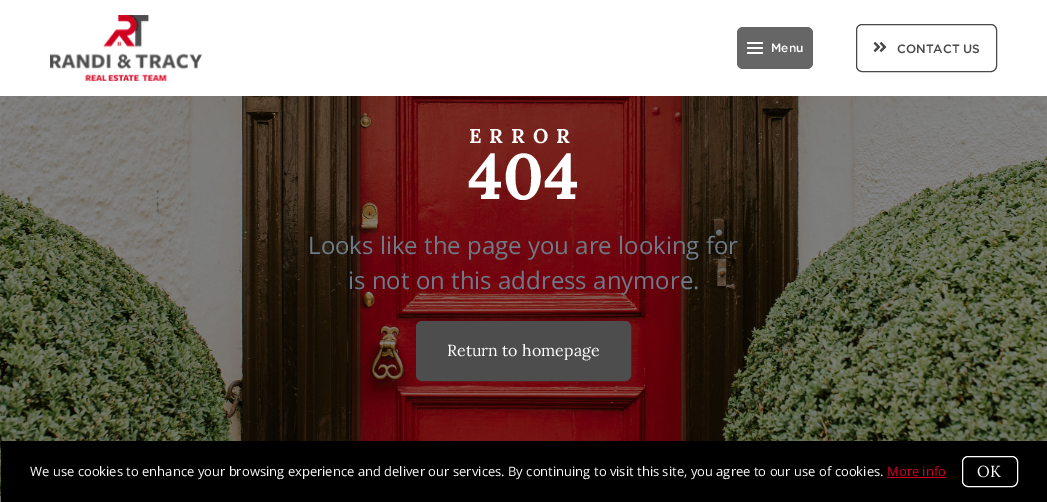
%!PS
<< /PageSize [1047 502] >> setpagedevice
/rgb { 3 { 255 div 3 1 roll } repeat setrgbcolor } def
/font { [ exch dup neg 0 0 3 -1 roll 0 0 ] selectfont } def
/roundrect { 5 dict begin { /r /h /w /y /x } { exch def } forall
  x r add y moveto x w add y 2 copy h add r arct x w add y h add x 1 index r arct
  x y h add x y r arct x y 2 copy exch w add exch r arct closepath end } def
/picture { 5 dict begin { /h /w /y /x /name } { exch def } forall
  gsave x y translate w h scale
  w h 8 [w 0 0 h 0 0] name (r) file false 3 colorimage grestore end } def
0 502 translate 1 -1 scale
4 setmiterlimit
255 255 255 rgb
0 0 1047 502 rectfill
(img/1.rgb) 50 15 153 66 picture
102 102 102 rgb
737 27 76 42 6 roundrect fill
255 255 255 rgb
747 42 16 2 1 roundrect fill
747 47 16 2 1 roundrect fill
747 52 16 2 1 roundrect fill
72 72 72 rgb
856.5 24.5 140 47 5.5 roundrect stroke
(img/2.rgb) 873 42 14 10 picture
(img/3.rgb) 0 96 1047 406 picture
77 77 77 rgb
416.5 321.5 214 59 5.5 roundrect gsave fill grestore
stroke
0 0 0 rgb
1 441 1046 61 rectfill
206 1 31 rgb
887 477 59 1 rectfill
255 255 255 rgb
962.5 456.5 55 30 5.5 roundrect stroke
/Gotham-Medium 12 font
771 52 moveto (Menu) show
72 72 72 rgb
897 53 moveto (CONTACT US) show
/Lora-Bold 20 font
255 255 255 rgb
469 143 moveto 8 0 (ERROR) ashow
/Lora-Bold 64 font
468 199 moveto (404) show
/OpenSans-Regular 24 font
110 122 135 rgb
308 254 moveto (Looks like the page you are looking for) show
348 289 moveto (is not on this address anymore.) show
/Lora-Regular 16 font
255 255 255 rgb
447 356 moveto (Return to homepage) show
/OpenSans-Regular 13 font
30 476 moveto (We use cookies to enhance your browsing experience and deliver our services. By continuing to visit this site, you agree to our use of cookies.) show
206 1 31 rgb
887 476 moveto (More info) show
/Lora-Regular 16 font
255 255 255 rgb
977 477 moveto (OK) show
showpage
